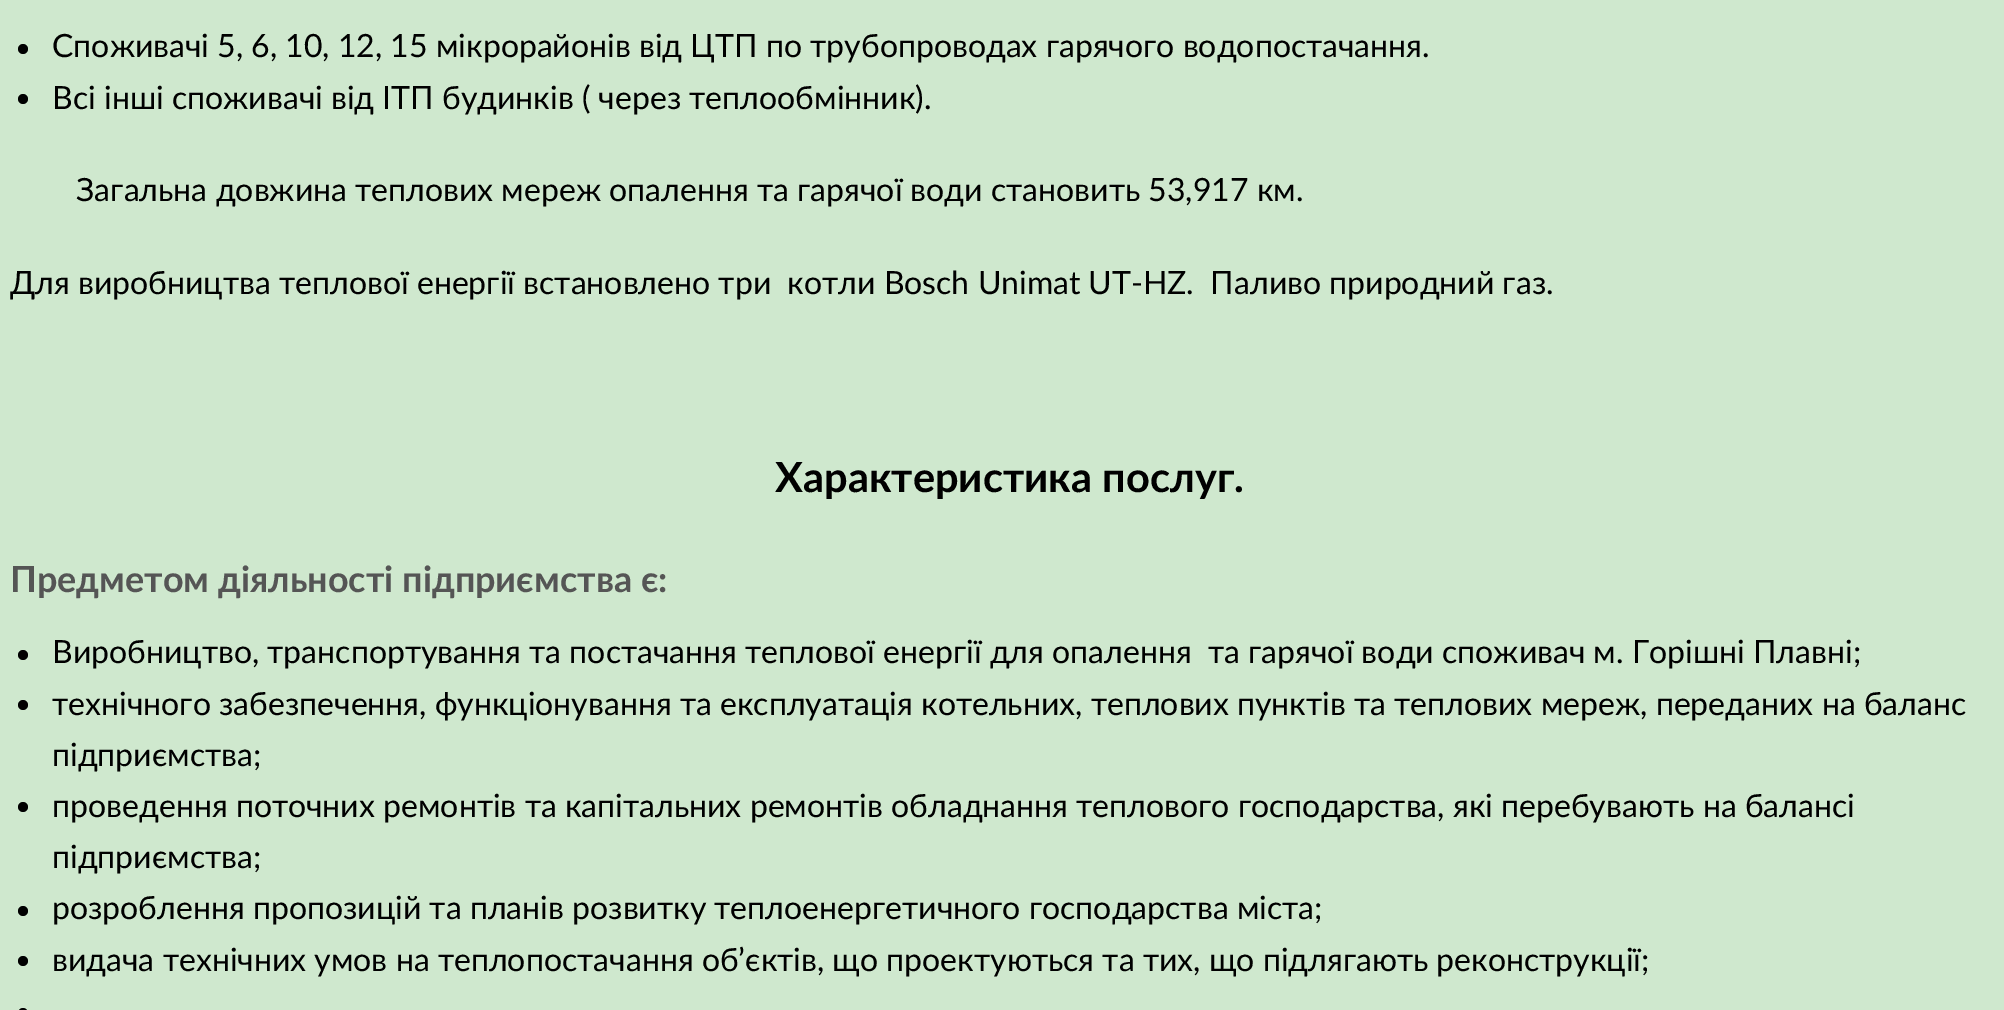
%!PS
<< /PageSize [2004 1010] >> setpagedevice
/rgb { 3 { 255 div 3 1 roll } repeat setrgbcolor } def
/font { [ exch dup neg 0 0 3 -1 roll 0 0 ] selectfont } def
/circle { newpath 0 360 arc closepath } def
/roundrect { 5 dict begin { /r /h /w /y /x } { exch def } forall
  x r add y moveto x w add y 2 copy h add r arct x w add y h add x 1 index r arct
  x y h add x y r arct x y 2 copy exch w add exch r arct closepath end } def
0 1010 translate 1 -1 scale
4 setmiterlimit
207 232 206 rgb
0 0 2004 1010 rectfill
0 0 0 rgb
23 49 5 circle fill
23 99 5 circle fill
23 655 5 circle fill
23 705 5 circle fill
23 807 5 circle fill
23 911 5 circle fill
23 961 5 circle fill
18 1008 10 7 5 roundrect fill
/Lato-Regular 32 font
[
  [(Споживачі 5, 6, 10, 12, 15 мікрорайонів від ЦТП по трубопроводах гарячого водопостачання.) 52 57]
  [(Всі інші споживачі від ІТП будинків \( через теплообмінник\).) 52 109]
  [(Загальна довжина теплових мереж опалення та гарячої води становить 53,917 км.) 76 201]
  [(Для виробництва теплової енергії встановлено три  котли Bosch Unimat UT-HZ.  Паливо природний газ.) 10 294]
] { aload pop moveto show } forall
/Lato-Bold 41.6 font
775 492 moveto (Характеристика послуг.) show
/Lato-Bold 36 font
85 85 85 rgb
10 592 moveto (Предметом діяльності підприємства є:) show
/Lato-Regular 32 font
0 0 0 rgb
[
  [(Виробництво, транспортування та постачання теплової енергії для опалення  та гарячої води споживач м. Горішні Плавні;) 52 663]
  [(технічного забезпечення, функціонування та експлуатація котельних, теплових пунктів та теплових мереж, переданих на баланс) 52 715]
  [(підприємства;) 52 766]
  [(проведення поточних ремонтів та капітальних ремонтів обладнання теплового господарства, які перебувають на балансі) 52 817]
  [(підприємства;) 52 868]
  [(розроблення пропозицій та планів розвитку теплоенергетичного господарства міста;) 52 919]
  [(видача технічних умов на теплопостачання об’єктів, що проектуються та тих, що підлягають реконструкції;) 52 971]
] { aload pop moveto show } forall
showpage
